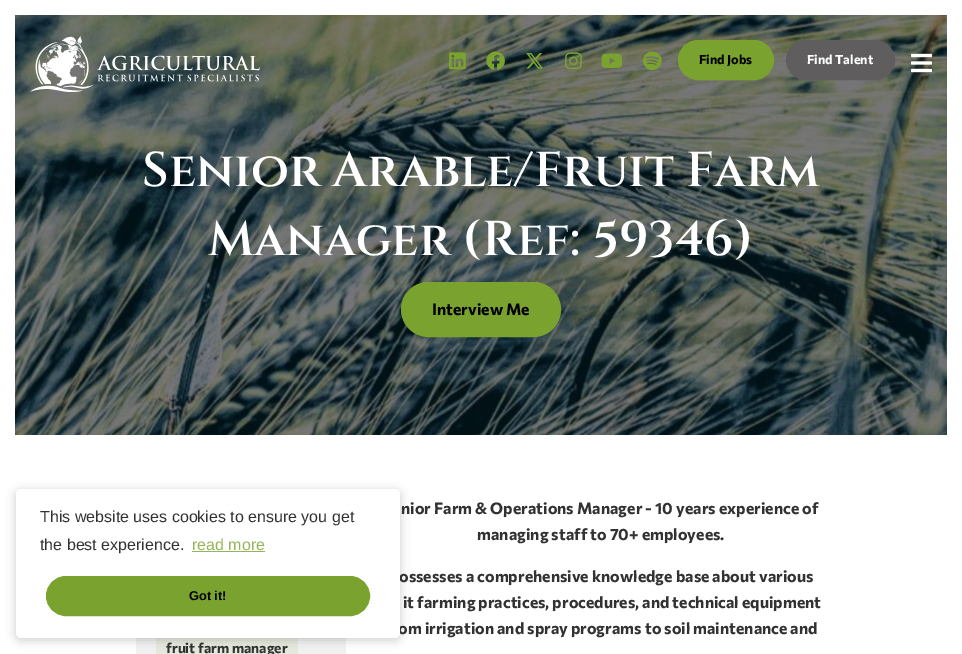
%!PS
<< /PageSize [962 654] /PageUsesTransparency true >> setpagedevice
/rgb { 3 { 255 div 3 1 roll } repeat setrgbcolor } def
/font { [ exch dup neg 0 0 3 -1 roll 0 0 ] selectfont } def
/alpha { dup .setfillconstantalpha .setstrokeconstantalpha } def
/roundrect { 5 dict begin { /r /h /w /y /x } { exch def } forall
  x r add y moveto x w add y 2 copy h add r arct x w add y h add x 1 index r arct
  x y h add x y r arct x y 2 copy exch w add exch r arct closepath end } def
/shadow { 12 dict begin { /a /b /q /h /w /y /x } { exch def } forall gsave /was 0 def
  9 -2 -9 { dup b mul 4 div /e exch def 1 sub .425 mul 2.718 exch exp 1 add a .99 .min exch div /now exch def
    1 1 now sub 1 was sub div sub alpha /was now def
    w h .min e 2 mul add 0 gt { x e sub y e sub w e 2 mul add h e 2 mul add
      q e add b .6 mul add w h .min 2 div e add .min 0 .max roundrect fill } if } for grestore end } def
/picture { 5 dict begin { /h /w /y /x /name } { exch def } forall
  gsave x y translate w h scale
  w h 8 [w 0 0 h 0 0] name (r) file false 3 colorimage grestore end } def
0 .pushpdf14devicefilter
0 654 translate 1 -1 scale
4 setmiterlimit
255 255 255 rgb
0 0 962 654 rectfill
0 0 0 rgb
15 15 932 420 rectfill
(img/9.rgb) 15 15 932 420 picture
(img/1.rgb) 30 36 230 56 picture
(img/2.rgb) 449 52 17 18 picture
(img/3.rgb) 486 51 19 19 picture
(img/4.rgb) 526 53 17 16 picture
(img/5.rgb) 565 52 17 18 picture
(img/6.rgb) 601 53 21 15 picture
(img/7.rgb) 643 51 19 19 picture
122 162 47 rgb
678.5 40.5 95 39 19.5 roundrect gsave fill grestore
stroke
95 93 94 rgb
786.5 40.5 108 39 19.5 roundrect gsave fill grestore
stroke
(img/8.rgb) 911 53 21 20 picture
122 162 47 rgb
401.5 282.5 159 54 27 roundrect gsave fill grestore
stroke
242 242 242 rgb
136 638 210 16 rectfill
230 234 222 rgb
156 638 142 16 rectfill
0 0 0 rgb
16 491 384 149 5 5 0.2 shadow
/Commissioner-Bold 12.75 font
699 64 moveto (Find Jobs) show
255 255 255 rgb
807 64 moveto (Find Talent) show
/Cinzel-SemiBold 48.8 font
142 186 moveto (Senior Arable/Fruit Farm) show
208 255 moveto (Manager \(Ref: 59346\)) show
/Commissioner-Bold 16 font
0 0 0 rgb
432 315 moveto (Interview Me) show
50 50 50 rgb
[
  [(nior Farm & Operations Manager - 10 years experience of) 401 514]
  [(managing staff to 70+ employees.) 477 540]
  [(ossesses a comprehensive knowledge base about various) 399 582]
  [(it farming practices, procedures, and technical equipment) 403 608]
  [(om irrigation and spray programs to soil maintenance and) 398 634]
] { aload pop moveto show } forall
/Commissioner-Bold 14 font
166 653 moveto (fruit farm manager) show
255 255 255 rgb
16 489 384 149 5 roundrect fill
/LiberationSans-Regular 16 font
50 50 50 rgb
40 522 moveto (This website uses cookies to ensure you get) show
40 550 moveto (the best experience.) show
149 181 89 rgb
192 550 moveto (read more) show
192 551 73 1 rectfill
122 162 47 rgb
46.5 576.5 323 39 19.5 roundrect gsave fill grestore
stroke
/LiberationSans-Bold 12.75 font
0 0 0 rgb
189 600 moveto (Got it!) show
.poppdf14devicefilter showpage
